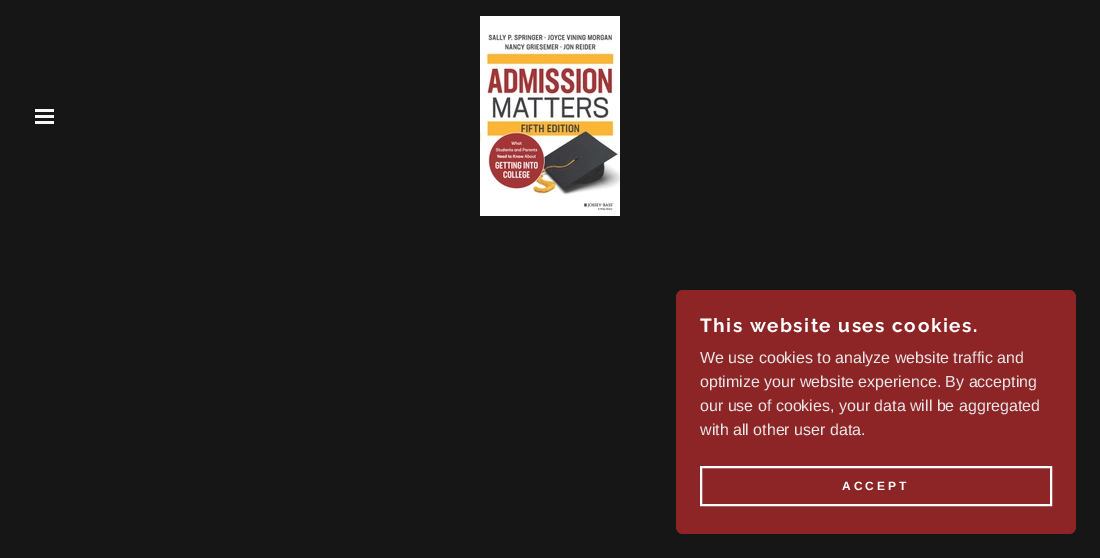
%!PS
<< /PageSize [1100 558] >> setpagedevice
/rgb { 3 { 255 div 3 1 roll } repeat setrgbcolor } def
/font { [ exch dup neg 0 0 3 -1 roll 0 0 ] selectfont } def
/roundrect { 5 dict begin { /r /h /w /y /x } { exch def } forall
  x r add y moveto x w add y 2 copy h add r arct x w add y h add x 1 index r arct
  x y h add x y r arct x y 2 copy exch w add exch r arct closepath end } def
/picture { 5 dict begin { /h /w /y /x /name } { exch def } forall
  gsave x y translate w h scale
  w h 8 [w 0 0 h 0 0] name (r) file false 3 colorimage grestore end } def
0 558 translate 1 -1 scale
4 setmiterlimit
22 22 22 rgb
0 0 1100 558 rectfill
[
  [35 109 19 3 247 247 247]
  [35 115 19 3 247 247 247]
  [35 121 19 3 247 247 247]
] { aload pop rgb rectfill } forall
(img/1.rgb) 480 16 140 200 picture
141 36 37 rgb
676 290 400 244 7 roundrect fill
255 255 255 rgb
2 setlinewidth
701 467 350 38 rectstroke
/Raleway-Bold 19 font
700 332 moveto 1.5 0 (This website uses cookies.) ashow
/LiberationSans-Regular 16 font
234 231 231 rgb
[
  [(We use cookies to analyze website traffic and) 700 363]
  [(optimize your website experience. By accepting) 700 387]
  [(our use of cookies, your data will be aggregated) 700 411]
  [(with all other user data.) 700 435]
] { aload pop moveto show } forall
/LiberationSans-Bold 12 font
255 255 255 rgb
842 490 moveto 3 0 (ACCEPT) ashow
showpage
